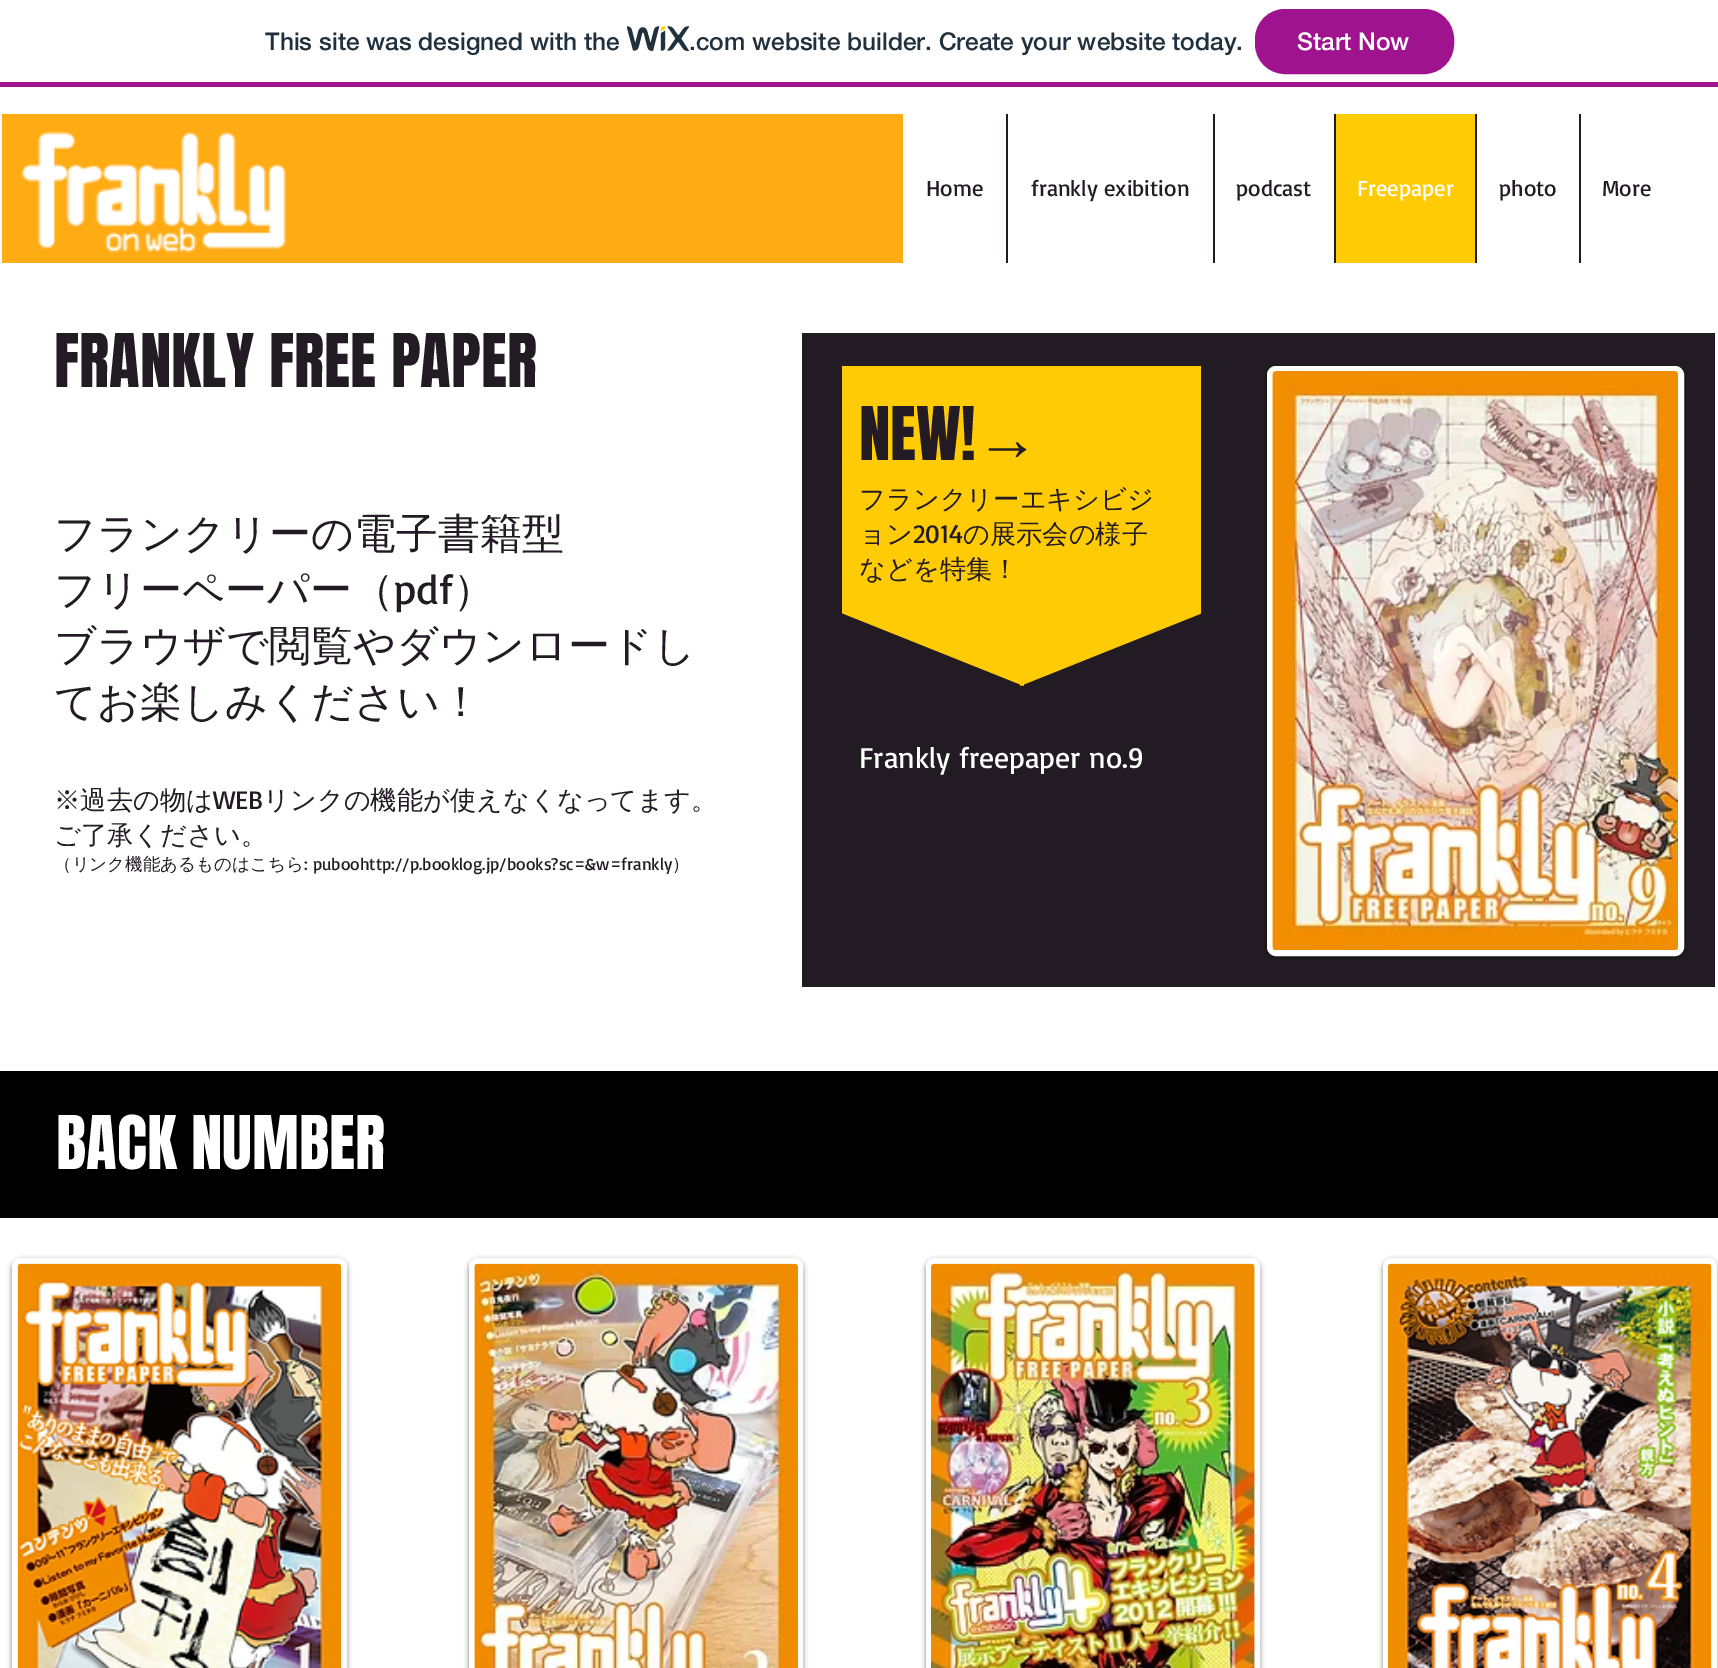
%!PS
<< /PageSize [1718 1668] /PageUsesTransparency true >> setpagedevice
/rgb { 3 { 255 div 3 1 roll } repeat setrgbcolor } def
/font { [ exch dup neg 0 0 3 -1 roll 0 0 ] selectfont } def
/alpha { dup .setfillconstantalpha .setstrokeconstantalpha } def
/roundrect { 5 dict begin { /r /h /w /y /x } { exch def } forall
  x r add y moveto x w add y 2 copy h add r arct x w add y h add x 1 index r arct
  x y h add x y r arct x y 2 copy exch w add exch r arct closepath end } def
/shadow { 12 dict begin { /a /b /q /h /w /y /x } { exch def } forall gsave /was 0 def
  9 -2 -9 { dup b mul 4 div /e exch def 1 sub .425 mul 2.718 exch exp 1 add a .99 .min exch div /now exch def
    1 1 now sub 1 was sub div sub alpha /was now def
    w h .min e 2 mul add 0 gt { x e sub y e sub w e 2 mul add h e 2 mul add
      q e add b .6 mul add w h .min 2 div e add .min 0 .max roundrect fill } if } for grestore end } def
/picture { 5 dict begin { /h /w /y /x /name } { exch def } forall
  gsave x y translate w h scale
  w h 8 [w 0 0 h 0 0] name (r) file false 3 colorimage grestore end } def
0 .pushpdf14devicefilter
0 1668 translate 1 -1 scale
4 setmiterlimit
255 255 255 rgb
0 0 1718 1668 rectfill
160 19 142 rgb
0 82 1718 5 rectfill
(img/1.rgb) 627 26 63 26 picture
1256 10 197 63 29 roundrect gsave fill grestore
2 setlinewidth
stroke
255 171 20 rgb
2 114 901 149 rectfill
(img/2.rgb) 20 131 267 122 picture
[
  [1006 114 2 149 34 27 35]
  [1213 114 2 149 34 27 35]
  [1336 114 139 149 255 203 5]
  [1334 114 2 149 34 27 35]
  [1475 114 2 149 34 27 35]
  [1579 114 2 149 34 27 35]
  [802 333 913 654 34 27 35]
] { aload pop rgb rectfill } forall
gsave
842 366 359 322 rectclip
255 203 5 rgb
1020 686 moveto 1020 336 lineto 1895 336 lineto closepath fill
1024 336 moveto 1024 686 lineto 149 336 lineto closepath fill
grestore
0 0 0 rgb
1267 368 417 589 9 2.5 0.5 shadow
255 255 255 rgb
1269.5 368.5 412 585 6.5 roundrect gsave fill grestore
5 setlinewidth
stroke
(img/3.rgb) 1272 371 406 579 picture
0 0 0 rgb
0 1071 1718 147 rectfill
12 1260 335 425 9 2.5 0.5 shadow
255 255 255 rgb
14.5 1260.5 330 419 6.5 roundrect gsave fill grestore
stroke
(img/4.rgb) 17 1263 324 405 picture
0 0 0 rgb
469 1260 334 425 9 2.5 0.5 shadow
255 255 255 rgb
471.5 1260.5 329 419 6.5 roundrect gsave fill grestore
stroke
(img/5.rgb) 474 1263 324 405 picture
0 0 0 rgb
926 1260 334 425 9 2.5 0.5 shadow
255 255 255 rgb
928.5 1260.5 329 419 6.5 roundrect gsave fill grestore
stroke
(img/6.rgb) 931 1263 324 405 picture
0 0 0 rgb
1383 1260 334 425 9 2.5 0.5 shadow
255 255 255 rgb
1385.5 1260.5 329 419 6.5 roundrect gsave fill grestore
stroke
(img/7.rgb) 1388 1263 324 405 picture
/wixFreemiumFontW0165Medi-Medium 24.5 font
32 48 60 rgb
265 50 moveto (This site was designed with the) show
689 50 moveto (.com website builder. Create your website today.) show
255 255 255 rgb
1297 50 moveto (Start Now) show
/Basic-Regular 22.75 font
34 27 35 rgb
[
  [(Home) 926 196]
  [(frankly exibition) 1031 196]
  [(podcast) 1236 196]
] { aload pop moveto show } forall
255 255 255 rgb
1357 196 moveto (Freepaper) show
34 27 35 rgb
1499 196 moveto (photo) show
1602 196 moveto (More) show
/Anton-Regular 63 font
54 387 moveto (FRANKLY FREE PAPER) show
/WenQuanYiZenHei-Medium 42 font
54 548 moveto (フランクリーの電子書籍型) show
54 604 moveto (フリーペーパー（) show
/Basic-Regular 42 font
394 604 moveto (pdf) show
/WenQuanYiZenHei-Medium 42 font
[
  [(）) 453 604]
  [(ブラウザで閲覧やダウンロードし) 54 660]
  [(てお楽しみください！) 54 716]
] { aload pop moveto show } forall
/WenQuanYiZenHei-Medium 26.25 font
54 809 moveto (※過去の物は) show
/Basic-Regular 26.25 font
213 809 moveto (WEB) show
/WenQuanYiZenHei-Medium 26.25 font
263 809 moveto (リンクの機能が使えなくなってます。) show
54 844 moveto (ご了承ください。) show
/WenQuanYiZenHei-Medium 17.5 font
54 870 moveto (（リンク機能あるものはこちら) show
/Basic-Regular 17.5 font
304 870 moveto (: puboohttp://p.booklog.jp/books?sc=&w=frankly) show
/WenQuanYiZenHei-Medium 17.5 font
672 870 moveto (）) show
/Anton-Regular 63 font
859 460 moveto (NEW!) show
/LiberationSans-Regular 63 font
976 460 moveto (→) show
/WenQuanYiZenHei-Medium 26.25 font
859 508 moveto (フランクリーエキシビジ) show
859 543 moveto (ョン) show
/Basic-Regular 26.25 font
913 543 moveto (2014) show
/WenQuanYiZenHei-Medium 26.25 font
963 543 moveto (の展示会の様子) show
859 578 moveto (などを特集！) show
/Basic-Regular 29.75 font
255 255 255 rgb
859 768 moveto (Frankly freepaper no.9) show
/Anton-Regular 63 font
56 1169 moveto (BACK NUMBER) show
.poppdf14devicefilter showpage
